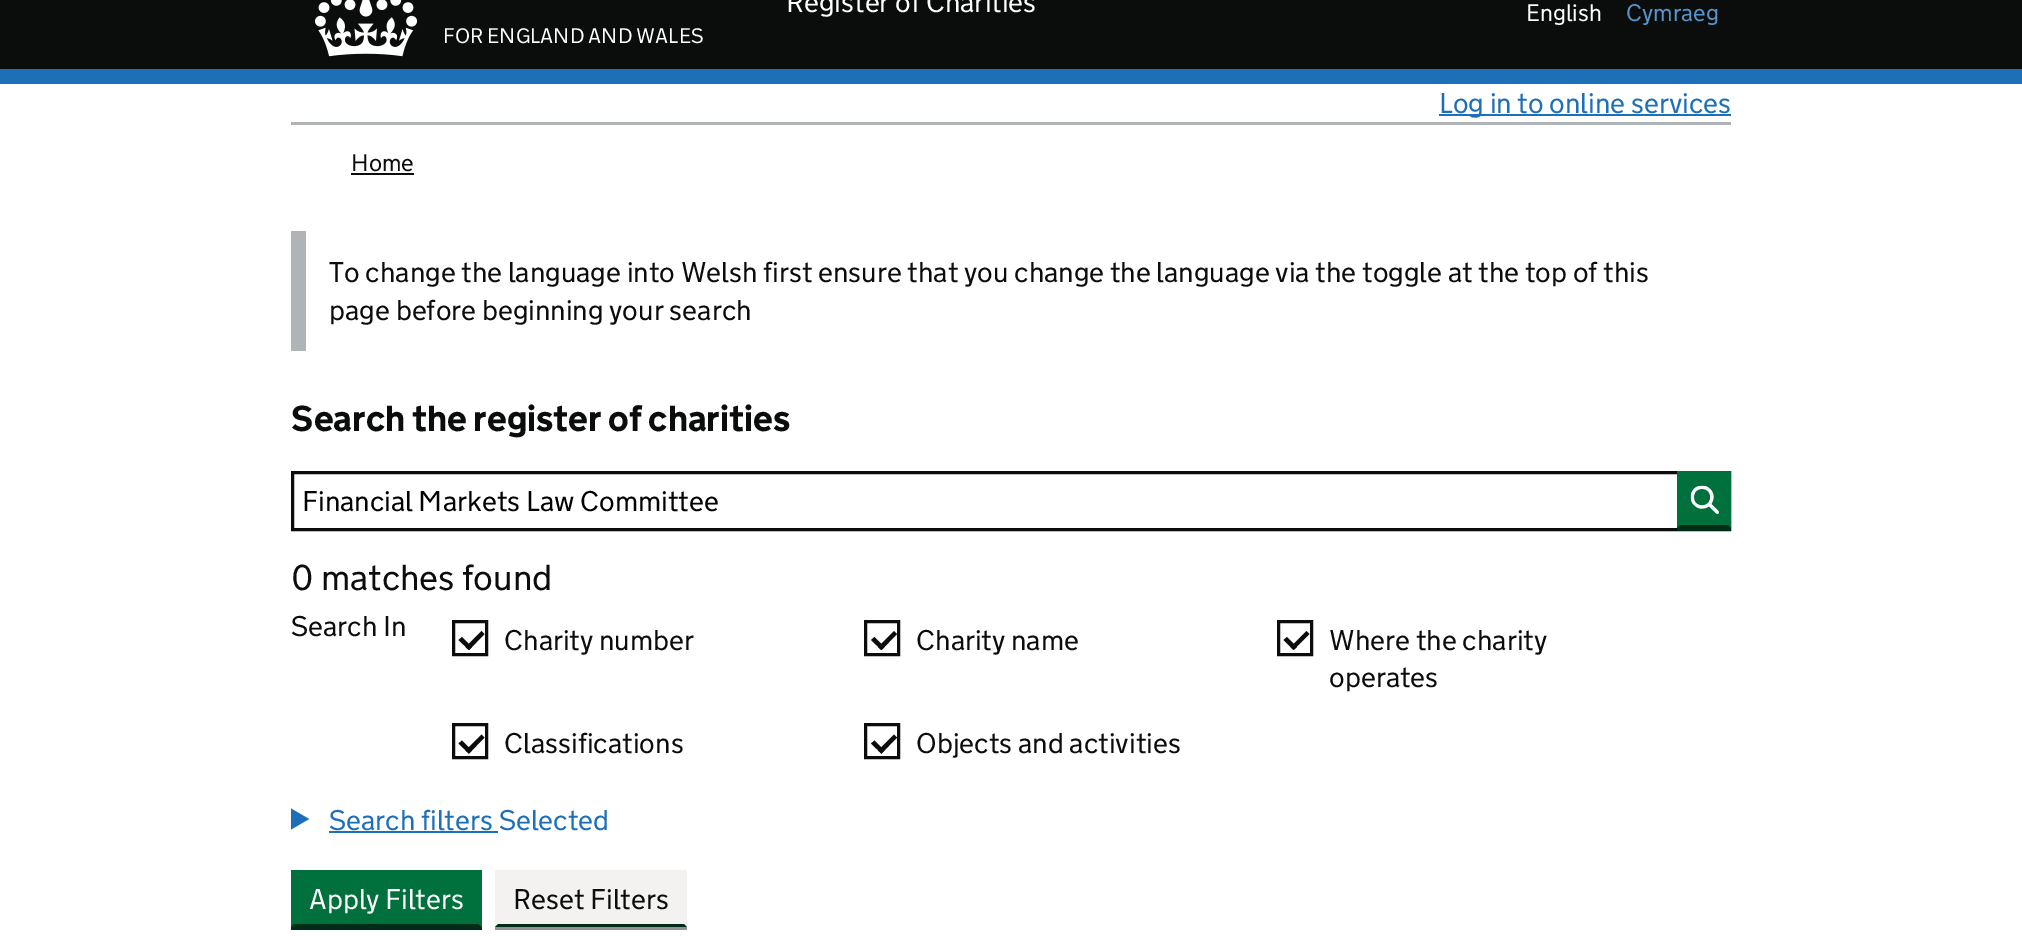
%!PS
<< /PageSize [2022 936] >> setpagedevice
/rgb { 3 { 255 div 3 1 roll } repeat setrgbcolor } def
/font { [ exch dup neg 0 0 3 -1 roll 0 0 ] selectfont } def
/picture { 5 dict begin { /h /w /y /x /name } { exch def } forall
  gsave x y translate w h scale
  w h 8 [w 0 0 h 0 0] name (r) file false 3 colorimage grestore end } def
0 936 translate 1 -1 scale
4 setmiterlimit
255 255 255 rgb
0 0 2022 936 rectfill
11 12 12 rgb
0 0 2022 69 rectfill
29 112 184 rgb
0 69 2022 15 rectfill
(img/1.rgb) 315 0 102 57 picture
[
  [291 122 1440 3 177 180 182]
  [1439 114 292 2 29 112 184]
  [351 173 63 2 11 12 12]
  [291 231 15 120 177 180 182]
] { aload pop rgb rectfill } forall
11 12 12 rgb
3 setlinewidth
292.5 472.5 1437 57 rectstroke
0 45 24 rgb
1677 528 54 3 rectfill
0 112 60 rgb
1677 471 54 57 rectfill
0 45 24 rgb
1731 528 moveto 1677 528 lineto 1680 525 lineto 1728 525 lineto closepath fill
(img/2.rgb) 1690 485 29 29 picture
11 12 12 rgb
453.5 621.5 33 33 rectstroke
465.5 647 moveto 481.5 631 lineto 484.5 634 lineto 469 650 lineto closepath fill
458.5 640 moveto 462 637 lineto 472 647 lineto 469 650 lineto closepath fill
865.5 621.5 33 33 rectstroke
878 647 moveto 894 631 lineto 897 634 lineto 881.5 650 lineto closepath fill
871 640 moveto 874.5 637 lineto 884.5 647 lineto 881.5 650 lineto closepath fill
1278.5 621.5 33 33 rectstroke
1290.5 647 moveto 1306.5 631 lineto 1309.5 634 lineto 1293.5 650 lineto closepath fill
1283.5 640 moveto 1287 637 lineto 1297 647 lineto 1293.5 650 lineto closepath fill
453.5 724.5 33 33 rectstroke
465.5 750.5 moveto 481.5 734.5 lineto 484.5 737.5 lineto 469 753.5 lineto closepath fill
458.5 743.5 moveto 462 740.5 lineto 472 750.5 lineto 469 753.5 lineto closepath fill
865.5 724.5 33 33 rectstroke
878 750.5 moveto 894 734.5 lineto 897 737.5 lineto 881.5 753.5 lineto closepath fill
871 743.5 moveto 874.5 740.5 lineto 884.5 750.5 lineto 881.5 753.5 lineto closepath fill
29 112 184 rgb
291 829.5 moveto 291 808.5 lineto 309 819 lineto closepath fill
329 831 169 2 rectfill
0 45 24 rgb
291 927 moveto 291 930 lineto 482 930 lineto 482 873 lineto 482 927 lineto closepath fill
0 112 60 rgb
291 870 191 57 rectfill
0 45 24 rgb
482 927 moveto 291 927 lineto 294 924 lineto 478 924 lineto closepath fill
146 145 145 rgb
495 927 192 3 rectfill
243 242 241 rgb
495 870 192 57 rectfill
0 45 24 rgb
687 927 moveto 495 927 lineto 498 924 lineto 684 924 lineto closepath fill
/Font-Light 28.5 font
255 255 255 rgb
786 12 moveto (Register of Charities) show
/Font-Light 24 font
1526 21 moveto (English) show
86 148 202 rgb
1626 21 moveto (Cymraeg) show
/Font-Light 21 font
255 255 255 rgb
443 43 moveto (FOR ENGLAND AND WALES) show
/Font-Light 28.5 font
29 112 184 rgb
1439 113 moveto (Log in to online services) show
/Font-Light 24 font
11 12 12 rgb
351 171 moveto (Home) show
/Font-Light 28.5 font
329 282 moveto (To change the language into Welsh first ensure that you change the language via the toggle at the top of this) show
329 320 moveto (page before beginning your search) show
/Font-Bold 36 font
291 431 moveto (Search the register of charities) show
/Font-Light 28.5 font
0 0 0 rgb
302 511 moveto (Financial Markets Law Committee) show
/Font-Light 36 font
11 12 12 rgb
291 590 moveto (0 matches found) show
/Font-Light 28.5 font
[
  [(Search In) 291 636]
  [(Charity number) 504 650]
  [(Charity name) 916 650]
  [(Where the charity) 1329 650]
  [(operates) 1329 687]
  [(Classifications) 504 753]
  [(Objects and activities) 916 753]
] { aload pop moveto show } forall
29 112 184 rgb
329 830 moveto (Search filters Selected) show
255 255 255 rgb
309 909 moveto (Apply Filters) show
11 12 12 rgb
513 909 moveto (Reset Filters) show
showpage
